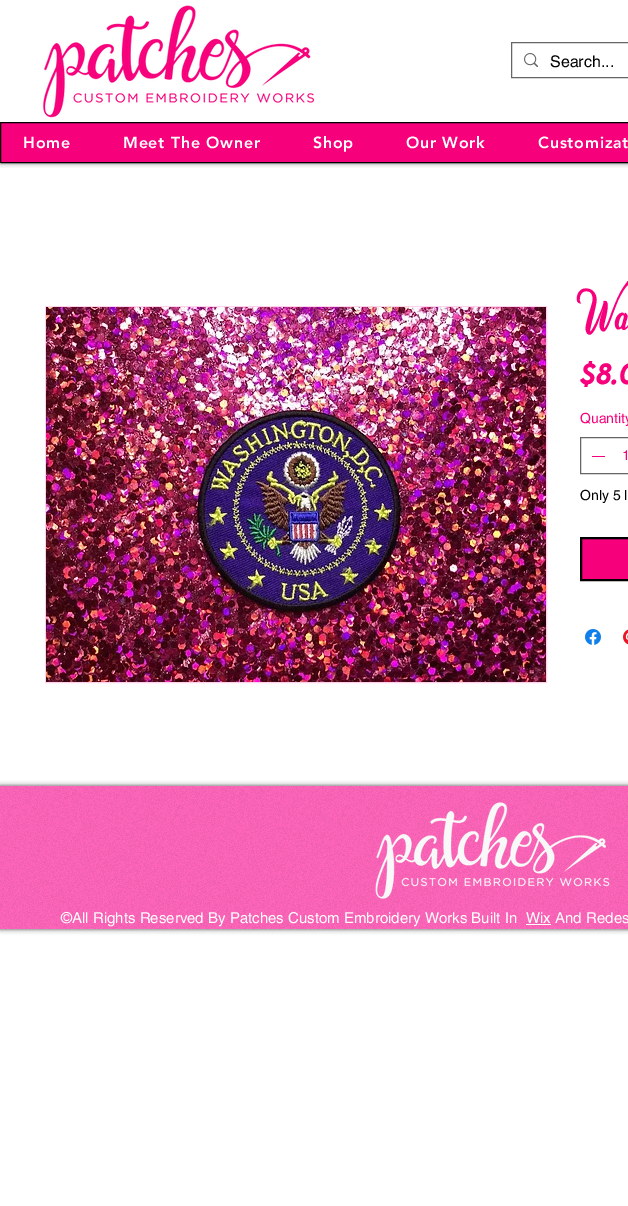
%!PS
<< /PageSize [628 1206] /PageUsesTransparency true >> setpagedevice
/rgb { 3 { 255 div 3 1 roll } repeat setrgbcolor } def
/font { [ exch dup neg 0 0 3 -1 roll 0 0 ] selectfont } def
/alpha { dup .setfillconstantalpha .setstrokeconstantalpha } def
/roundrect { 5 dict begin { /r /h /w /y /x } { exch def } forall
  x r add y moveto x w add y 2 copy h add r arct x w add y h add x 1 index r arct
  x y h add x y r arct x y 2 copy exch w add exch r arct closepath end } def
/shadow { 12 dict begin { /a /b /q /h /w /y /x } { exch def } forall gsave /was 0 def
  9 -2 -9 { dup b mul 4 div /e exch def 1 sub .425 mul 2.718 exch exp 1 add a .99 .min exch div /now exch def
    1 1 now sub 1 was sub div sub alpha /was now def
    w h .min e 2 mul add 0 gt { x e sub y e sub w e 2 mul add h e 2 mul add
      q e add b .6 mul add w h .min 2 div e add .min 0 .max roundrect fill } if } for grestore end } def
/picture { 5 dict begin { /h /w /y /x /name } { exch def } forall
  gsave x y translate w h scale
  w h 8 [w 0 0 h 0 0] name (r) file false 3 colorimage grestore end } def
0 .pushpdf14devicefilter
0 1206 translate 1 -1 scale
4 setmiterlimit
255 255 255 rgb
0 0 628 1206 rectfill
gsave
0 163 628 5 rectclip
0 0 0 rgb
0 0 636 163 0 2.5 0.6 shadow
grestore
(img/1.rgb) 43 5 272 113 picture
102 102 102 rgb
511.5 42.5 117 35 rectstroke
(img/2.rgb) 524 53 14 14 picture
247 0 124 rgb
0.5 122.5 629 40 0.5 roundrect gsave fill grestore
0 0 0 rgb
stroke
255 209 234 rgb
45.5 306.5 501 376 rectstroke
(img/3.rgb) 46 307 500 375 picture
102 102 102 rgb
580.5 437.5 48 36 rectstroke
247 0 124 rgb
592 456 13 1 rectfill
581 538 moveto 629 538 lineto 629 580 lineto 581 580 lineto closepath gsave fill grestore
0 0 0 rgb
2 setlinewidth
stroke
(img/4.rgb) 585 629 16 16 picture
(img/5.rgb) 623 629 5 16 picture
0 786 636 143 0 2.5 0.7 shadow
255 100 186 rgb
0 786 628 143 rectfill
(img/6.rgb) 0 786 628 143 picture
(img/7.rgb) 375 802 235 97 picture
255 255 255 rgb
526 924 25 1 rectfill
/helvetica-Regular 16 font
0 0 0 rgb
550 67 moveto (Search...) show
/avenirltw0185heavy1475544-Black 16 font
255 255 255 rgb
23 148 moveto 0.75 0 (Home) ashow
123 148 moveto 0.75 0 (Meet The Owner) ashow
313 148 moveto 0.75 0 (Shop) ashow
406 148 moveto 0.75 0 (Our Work) ashow
538 148 moveto 0.75 0 (Customizat) ashow
/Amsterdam-Regular 24 font
247 0 124 rgb
580 330 moveto (Wa) show
/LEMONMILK-MediumItalic 26 font
580 384 moveto ($8.0) show
/helvetica-Regular 14 font
580 423 moveto (Quantity) show
622 460 moveto (1) show
0 0 0 rgb
580 500 moveto (Only 5 l) show
/helvetica-Regular 15 font
255 255 255 rgb
61 923 moveto (©All Rights Reserved By Patches Custom Embroidery Works Built In) show
526 923 moveto (Wix And Redes) show
.poppdf14devicefilter showpage
